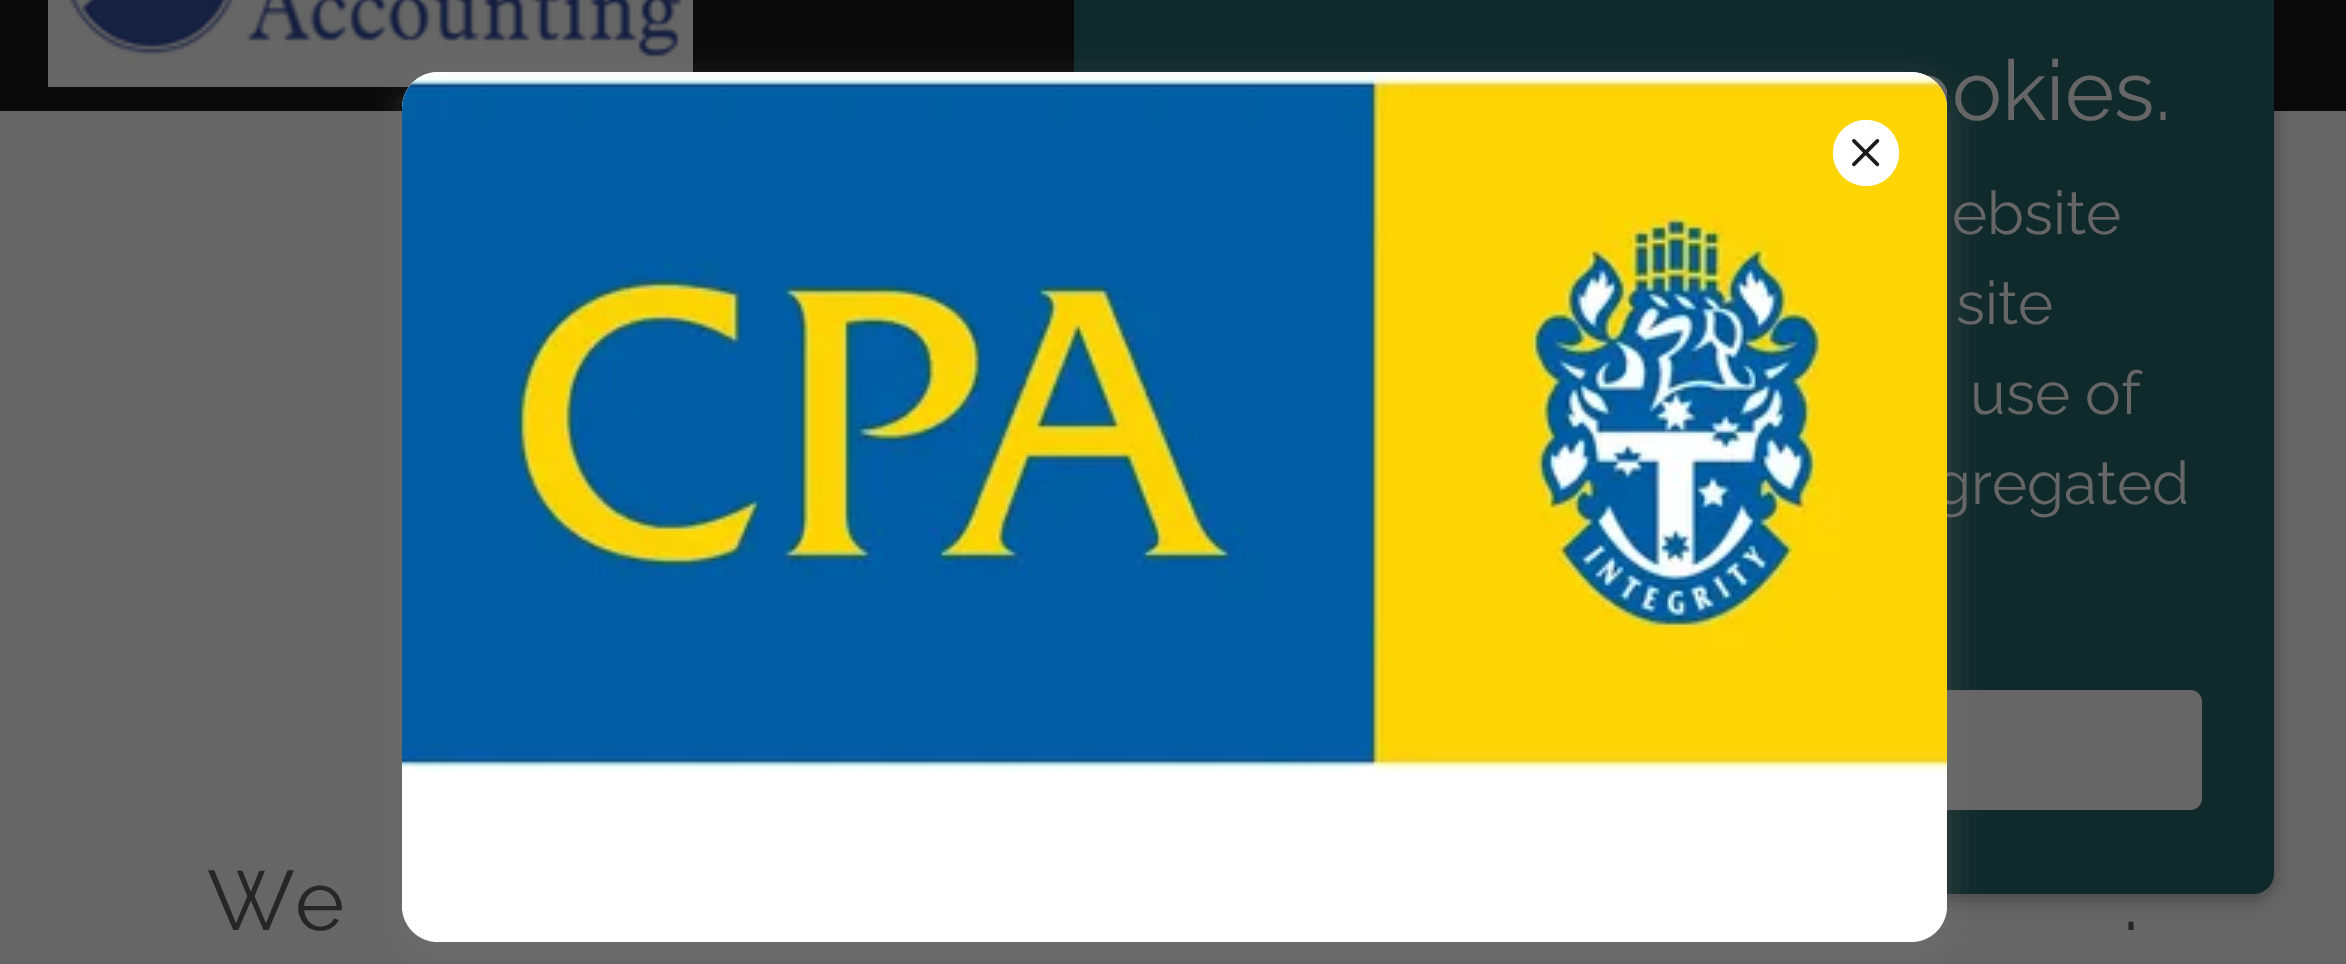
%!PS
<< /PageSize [2346 964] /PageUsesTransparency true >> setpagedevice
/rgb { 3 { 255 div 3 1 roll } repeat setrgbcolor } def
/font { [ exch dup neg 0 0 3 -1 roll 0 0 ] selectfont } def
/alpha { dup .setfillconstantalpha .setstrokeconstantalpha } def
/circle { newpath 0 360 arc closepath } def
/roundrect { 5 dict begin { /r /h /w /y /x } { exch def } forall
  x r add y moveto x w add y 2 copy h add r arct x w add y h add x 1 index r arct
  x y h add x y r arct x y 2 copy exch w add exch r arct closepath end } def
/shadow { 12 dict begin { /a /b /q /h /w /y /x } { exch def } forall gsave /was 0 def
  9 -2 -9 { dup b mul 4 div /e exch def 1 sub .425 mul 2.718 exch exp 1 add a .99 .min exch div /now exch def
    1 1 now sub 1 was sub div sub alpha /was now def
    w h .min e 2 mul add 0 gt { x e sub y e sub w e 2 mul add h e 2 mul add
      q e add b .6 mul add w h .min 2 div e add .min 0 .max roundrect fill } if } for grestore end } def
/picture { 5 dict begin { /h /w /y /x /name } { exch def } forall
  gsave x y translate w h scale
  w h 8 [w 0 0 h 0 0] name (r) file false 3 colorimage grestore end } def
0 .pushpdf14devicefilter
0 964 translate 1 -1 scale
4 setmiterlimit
102 102 102 rgb
0 0 2346 964 rectfill
9 9 9 rgb
0 0 2346 111 rectfill
(img/1.rgb) 48 0 645 87 picture
0 0 0 rgb
1074 -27 1200 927 21 9 0.3 shadow
16 41 42 rgb
1074 -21 1200 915 21 roundrect fill
102 102 102 rgb
1146 690 1056 120 12 roundrect fill
117 117 117 rgb
402 84 1545 870 36 18 0.4 shadow
/Raleway-Regular 84 font
102 102 102 rgb
1952 120 moveto (okies.) show
/Raleway-Regular 60 font
[
  [(ebsite) 1952 234]
  [(site) 1956 324]
  [(use of) 1970 414]
  [(gregated) 1934 504]
] { aload pop moveto show } forall
255 255 255 rgb
402 72 1545 870 36 roundrect fill
(img/2.rgb) 402 72 1545 702 picture
1866 153 33 circle fill
(img/3.rgb) 1852 139 28 28 picture
/Raleway-Regular 84 font
38 38 38 rgb
207 930 moveto (We) show
2123 930 moveto (.) show
.poppdf14devicefilter showpage
